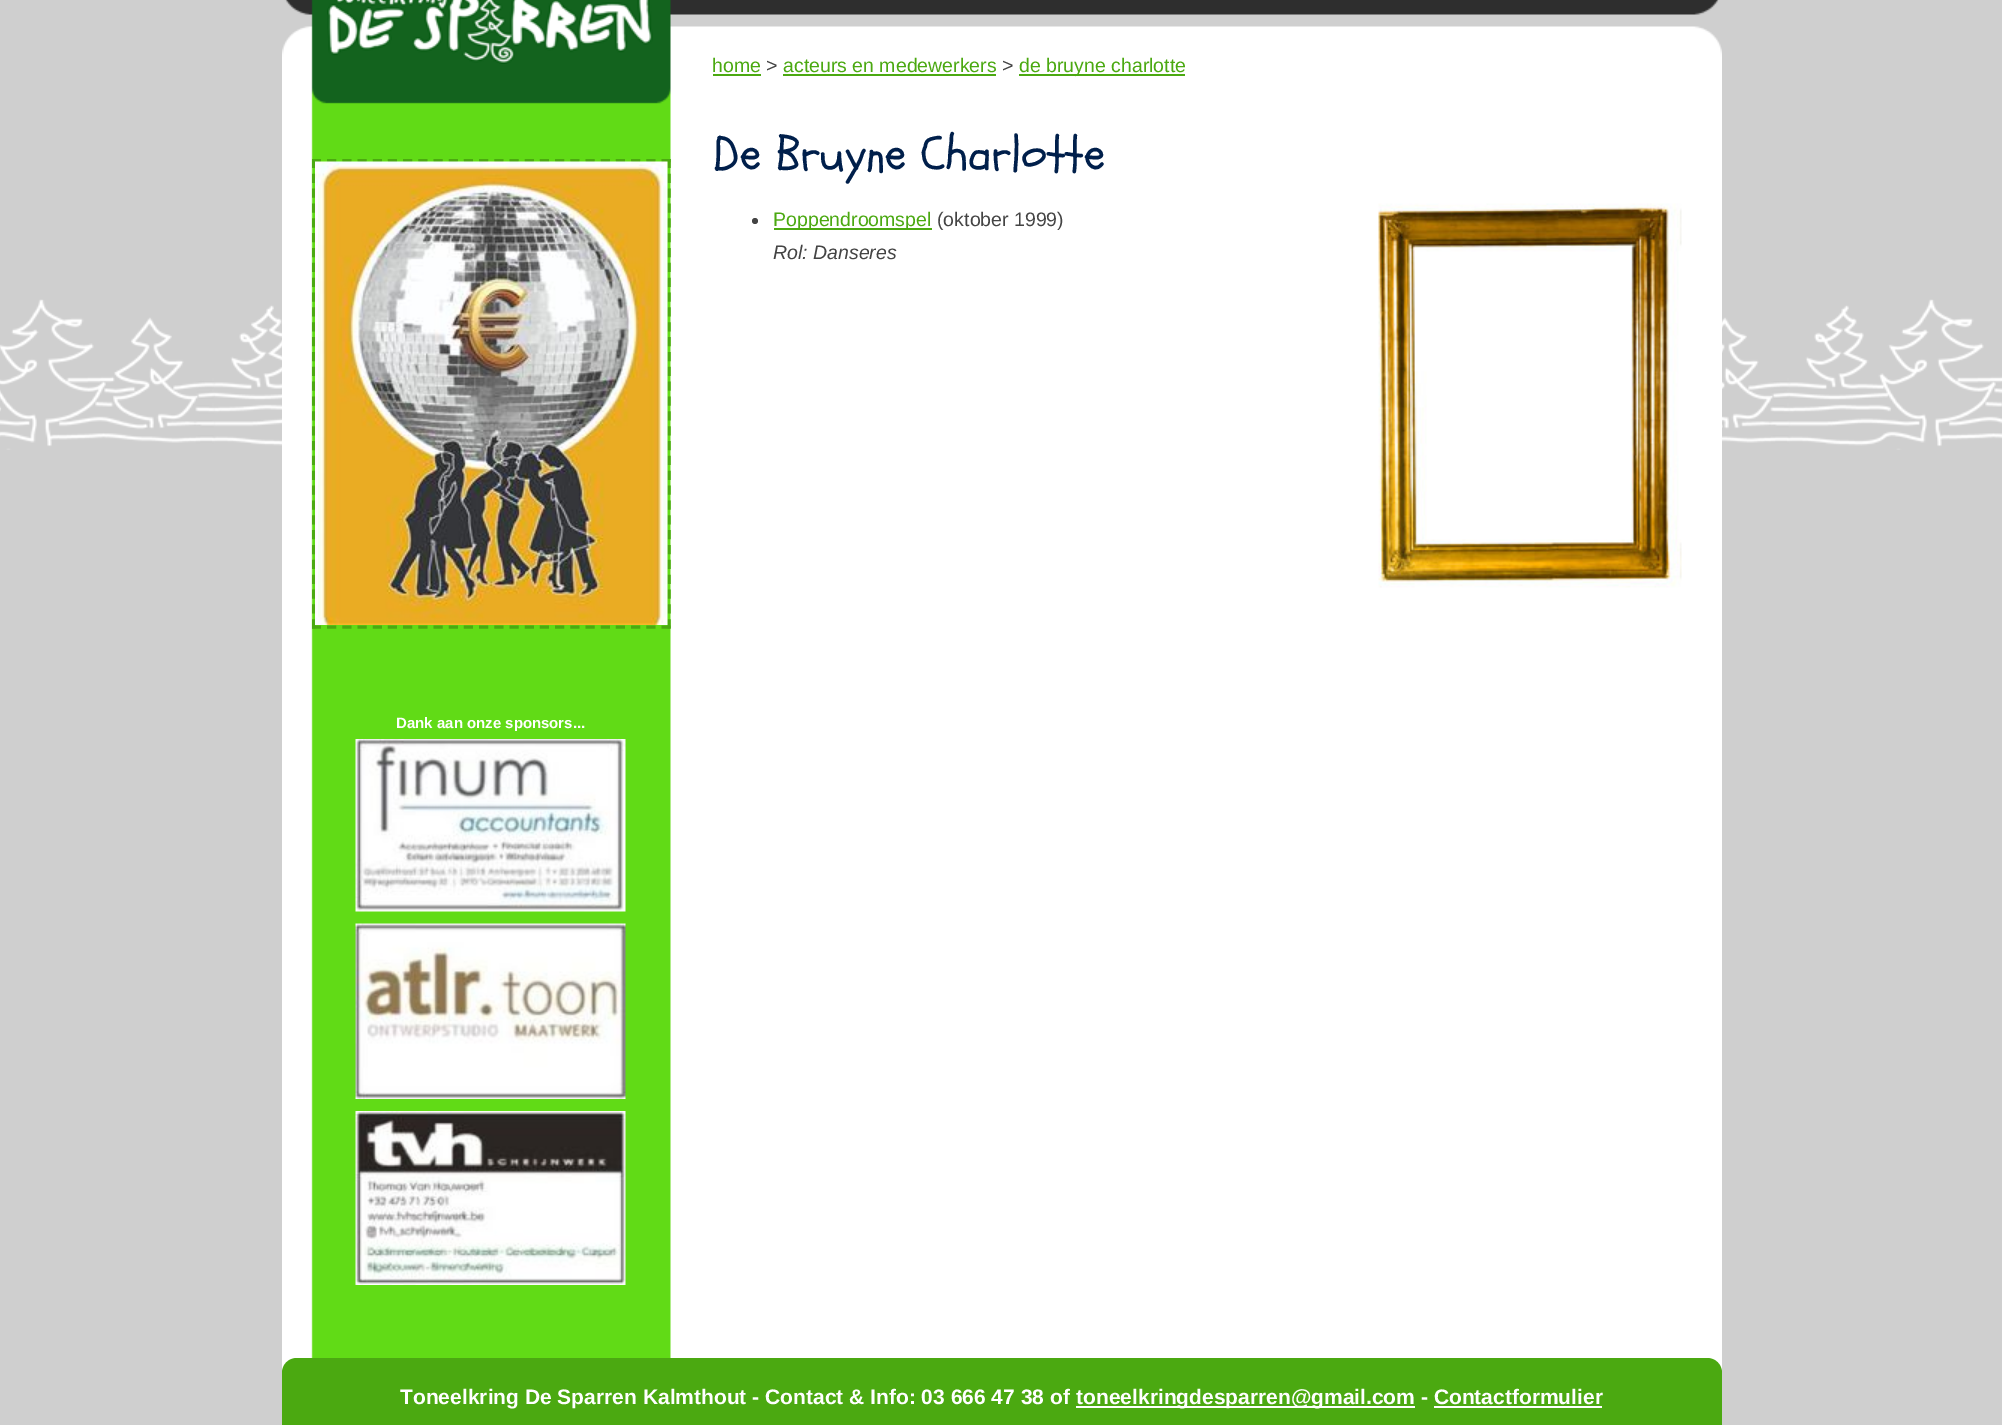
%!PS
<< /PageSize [2002 1425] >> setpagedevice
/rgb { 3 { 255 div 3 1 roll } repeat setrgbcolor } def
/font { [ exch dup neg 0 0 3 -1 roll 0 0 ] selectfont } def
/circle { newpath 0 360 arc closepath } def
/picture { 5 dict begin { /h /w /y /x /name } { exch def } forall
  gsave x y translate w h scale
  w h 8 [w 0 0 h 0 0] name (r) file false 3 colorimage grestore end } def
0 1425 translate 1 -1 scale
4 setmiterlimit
207 207 207 rgb
0 0 2002 1425 rectfill
(img/1.rgb) 0 299 2002 151 picture
(img/2.rgb) 282 104 1440 1269 picture
(img/3.rgb) 282 0 1440 104 picture
(img/4.rgb) 327 0 326 64 picture
[
  [713 74 48 2 75 169 17]
  [783 74 213 2 75 169 17]
  [1019 74 166 2 75 169 17]
] { aload pop rgb rectfill } forall
68 68 68 rgb
755 221 3 circle fill
75 169 17 rgb
774 228 158 2 rectfill
(img/5.rgb) 1378 203 304 385 picture
3 setlinewidth
[9 6.2] 0 setdash
312 160.5 moveto 670.5 160.5 lineto stroke
[9 5.85] 0 setdash
669 159 moveto 669 628.5 lineto stroke
[9 6.2] 0 setdash
312 627 moveto 670.5 627 lineto stroke
[9 5.85] 0 setdash
313.5 159 moveto 313.5 628.5 lineto stroke
(img/6.rgb) 315 161 353 464 picture
(img/7.rgb) 355 739 271 173 picture
(img/8.rgb) 355 923 271 176 picture
(img/9.rgb) 355 1111 271 174 picture
297 1358 moveto 1707 1358 lineto 1715.5 1358 1722 1364.5 1722 1373 curveto 1722 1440 lineto 282 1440 lineto 282 1373 lineto 282 1364.5 288.5 1358 297 1358 curveto closepath fill
255 255 255 rgb
1076 1406 339 2 rectfill
1434 1406 168 2 rectfill
/LiberationSans-Regular 19.5 font
75 169 17 rgb
712 72 moveto (home) show
68 68 68 rgb
766 72 moveto (>) show
75 169 17 rgb
783 72 moveto (acteurs en medewerkers) show
68 68 68 rgb
1002 72 moveto (>) show
75 169 17 rgb
1019 72 moveto (de bruyne charlotte) show
/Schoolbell-Regular 48 font
0 31 75 rgb
713 170 moveto (De Bruyne Charlotte) show
/LiberationSans-Regular 19.5 font
75 169 17 rgb
773 226 moveto (Poppendroomspel) show
68 68 68 rgb
937 226 moveto (\(oktober 1999\)) show
/LiberationSans-Italic 19.5 font
773 259 moveto (Rol: Danseres) show
/LiberationSans-Bold 15 font
255 255 255 rgb
396 728 moveto (Dank aan onze sponsors...) show
/LiberationSans-Bold 21 font
400 1404 moveto (Toneelkring De Sparren Kalmthout - Contact & Info: 03 666 47 38 of) show
1076 1404 moveto (toneelkringdesparren@gmail.com - Contactformulier) show
showpage
